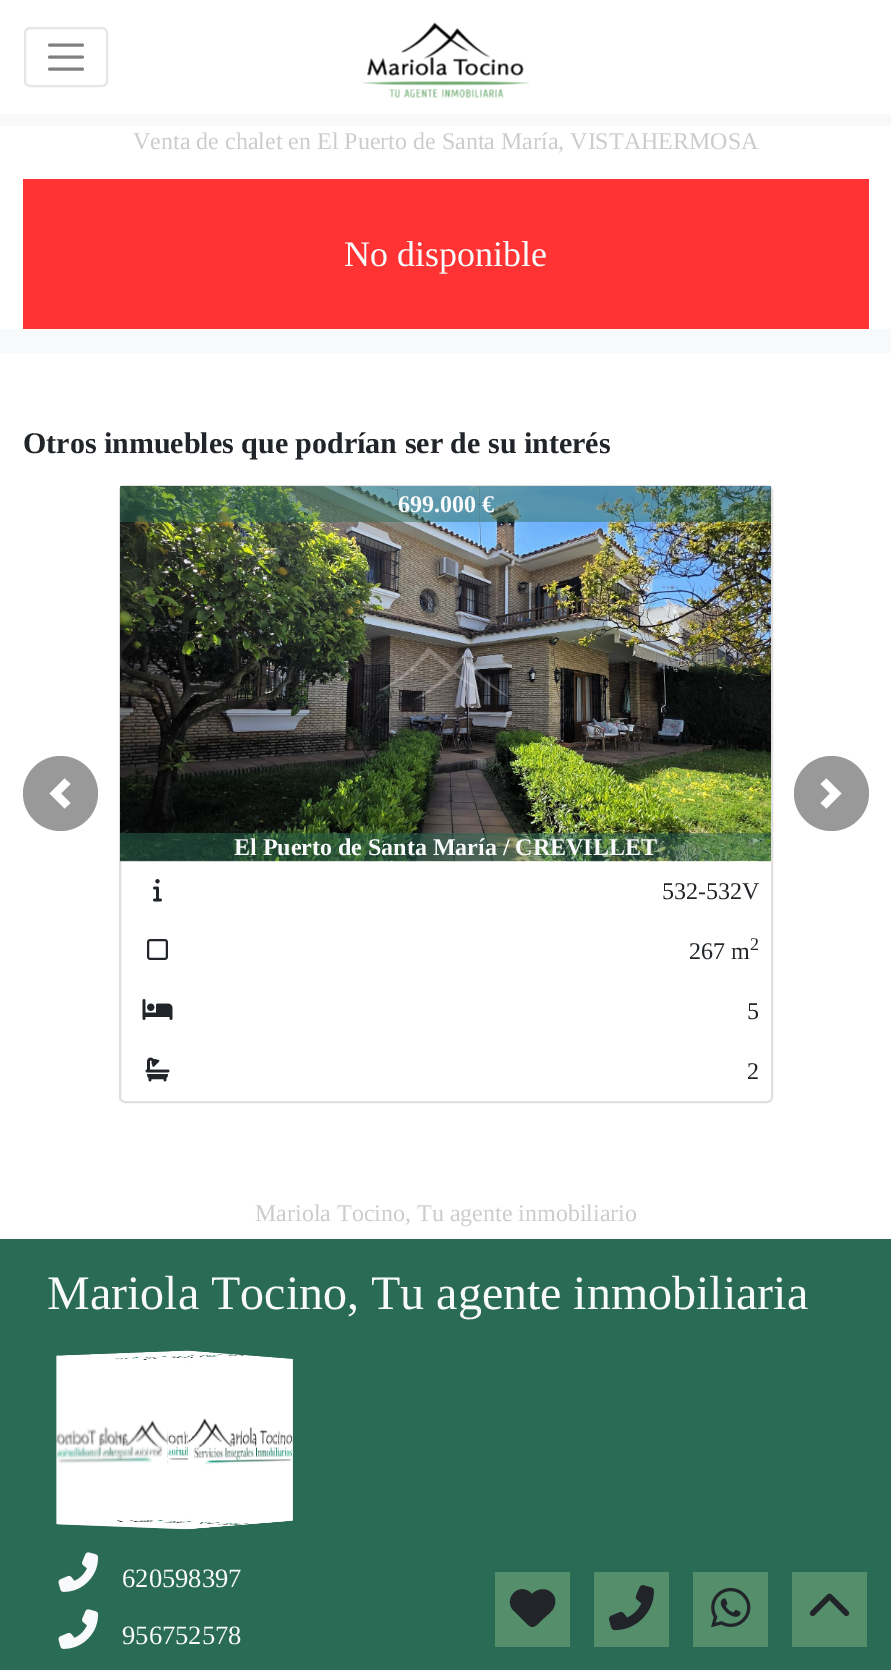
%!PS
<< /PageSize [891 1670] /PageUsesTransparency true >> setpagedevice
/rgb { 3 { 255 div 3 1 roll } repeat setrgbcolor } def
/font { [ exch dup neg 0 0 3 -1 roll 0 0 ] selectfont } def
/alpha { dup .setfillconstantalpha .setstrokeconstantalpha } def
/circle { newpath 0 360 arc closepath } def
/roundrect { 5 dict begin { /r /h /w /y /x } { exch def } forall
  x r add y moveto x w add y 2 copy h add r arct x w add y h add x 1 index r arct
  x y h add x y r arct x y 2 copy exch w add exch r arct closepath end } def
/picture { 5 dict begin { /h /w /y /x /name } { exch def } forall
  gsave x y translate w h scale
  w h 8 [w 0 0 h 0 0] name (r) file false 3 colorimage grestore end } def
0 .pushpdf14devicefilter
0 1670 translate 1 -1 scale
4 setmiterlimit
255 255 255 rgb
0 0 891 1670 rectfill
230 230 230 rgb
2 setlinewidth
25 28 82 58 5 roundrect stroke
128 128 128 rgb
3 setlinewidth
1 setlinecap
49.5 45 moveto 82.5 45 lineto 49.5 57 moveto 82.5 57 lineto 49.5 69 moveto 82.5 69 lineto stroke
(img/1.rgb) 362 22 168 76 picture
[
  [0 114 891 239 248 249 250]
  [0 126 891 203 255 255 255]
  [23 179 846 150 255 51 51]
] { aload pop rgb rectfill } forall
153 153 153 rgb
60.5 793.5 37.5 circle fill
255 255 255 rgb
64.5 778.5 moveto 49.5 793.5 lineto 64.5 808.5 lineto 70.5 803 lineto 61 793.5 lineto 70.5 784 lineto closepath fill
223 223 223 rgb
2 setlinewidth
0 setlinecap
120 486 652 616 5 roundrect stroke
(img/2.rgb) 120 486 651 376 picture
0.47 alpha
42 107 85 rgb
120 486 651 36 rectfill
120 833 651 28 rectfill
1 alpha
(img/3.rgb) 153 879 9 23 picture
(img/4.rgb) 147 939 21 21 picture
(img/5.rgb) 142 999 31 21 picture
(img/6.rgb) 145 1057 25 25 picture
153 153 153 rgb
831.5 793.5 37.5 circle fill
255 255 255 rgb
826.5 778.5 moveto 820.5 784 lineto 830 793.5 lineto 820.5 803 lineto 826.5 808.5 lineto 841.5 793.5 lineto closepath fill
42 107 85 rgb
0 1239 891 431 rectfill
(img/7.rgb) 56 1350 132 180 picture
(img/11.rgb) 167 1359 126 162 picture
(img/8.rgb) 187 1350 106 180 picture
(img/10.rgb) 56 1355 112 170 picture
(img/9.rgb) 63 1351 223 12 picture
(img/12.rgb) 57 1517 229 13 picture
(img/13.rgb) 58 1552 41 40 picture
(img/13.rgb) 58 1609 41 40 picture
84 142 107 rgb
495 1572 75 75 rectfill
33 37 41 rgb
514 1611 moveto 530 1626 lineto 514 1611 lineto 527 1624 lineto 532 1628 533 1628 538 1624 curveto 543 1619 lineto 547 1615 552 1612 554 1607 curveto 560 1593 543 1583 532 1594 curveto 519 1580 502 1600 514 1611 curveto closepath fill
84 142 107 rgb
594 1572 75 75 rectfill
(img/14.rgb) 609 1585 45 46 picture
693 1572 75 75 rectfill
(img/15.rgb) 711 1587 40 41 picture
792 1572 75 75 rectfill
(img/16.rgb) 809 1593 41 23 picture
/LiberationSerif-Regular 24 font
204 204 204 rgb
133 149 moveto (Venta de chalet en El Puerto de Santa María, VISTAHERMOSA) show
/LiberationSerif-Regular 36 font
248 249 250 rgb
344 266 moveto (No disponible) show
/LiberationSerif-Bold 30 font
33 37 41 rgb
23 453 moveto (Otros inmuebles que podrían ser de su interés) show
/LiberationSerif-Bold 24 font
248 249 250 rgb
398 512 moveto (699.000 €) show
234 855 moveto (El Puerto de Santa María / CREVILLET) show
/LiberationSerif-Regular 24 font
33 37 41 rgb
662 899 moveto (532-532V) show
689 959 moveto (267 m) show
/LiberationSerif-Regular 18 font
750 950 moveto (2) show
/LiberationSerif-Regular 24 font
747 1019 moveto (5) show
747 1079 moveto (2) show
204 204 204 rgb
255 1221 moveto (Mariola Tocino, Tu agente inmobiliario) show
/LiberationSerif-Regular 48 font
248 249 250 rgb
47 1309 moveto (Mariola Tocino, Tu agente inmobiliaria) show
/LiberationSerif-Regular 26.5 font
122 1587 moveto (620598397) show
122 1644 moveto (956752578) show
.poppdf14devicefilter showpage
